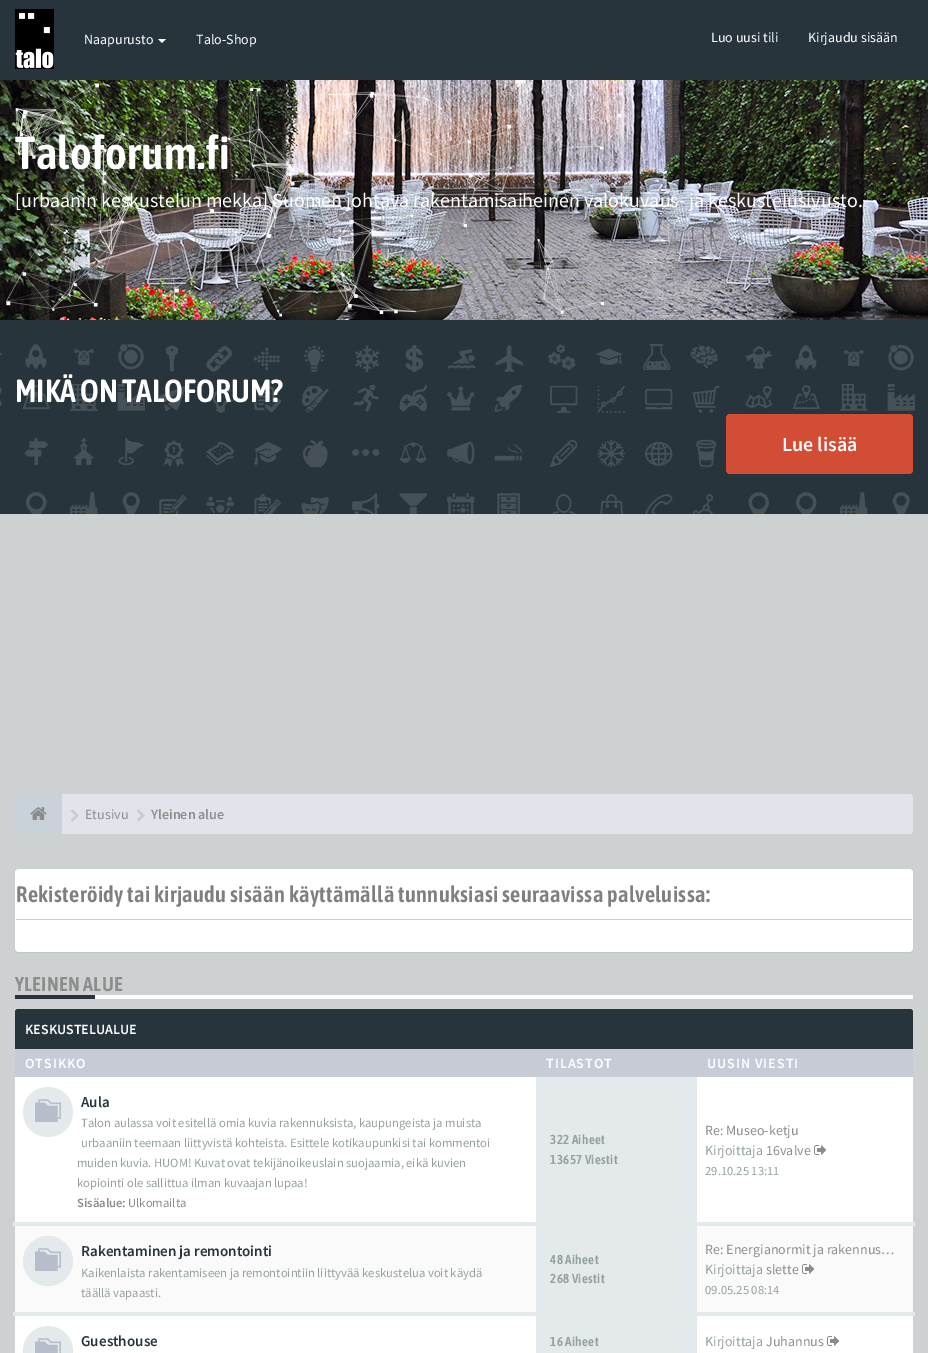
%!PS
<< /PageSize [928 1353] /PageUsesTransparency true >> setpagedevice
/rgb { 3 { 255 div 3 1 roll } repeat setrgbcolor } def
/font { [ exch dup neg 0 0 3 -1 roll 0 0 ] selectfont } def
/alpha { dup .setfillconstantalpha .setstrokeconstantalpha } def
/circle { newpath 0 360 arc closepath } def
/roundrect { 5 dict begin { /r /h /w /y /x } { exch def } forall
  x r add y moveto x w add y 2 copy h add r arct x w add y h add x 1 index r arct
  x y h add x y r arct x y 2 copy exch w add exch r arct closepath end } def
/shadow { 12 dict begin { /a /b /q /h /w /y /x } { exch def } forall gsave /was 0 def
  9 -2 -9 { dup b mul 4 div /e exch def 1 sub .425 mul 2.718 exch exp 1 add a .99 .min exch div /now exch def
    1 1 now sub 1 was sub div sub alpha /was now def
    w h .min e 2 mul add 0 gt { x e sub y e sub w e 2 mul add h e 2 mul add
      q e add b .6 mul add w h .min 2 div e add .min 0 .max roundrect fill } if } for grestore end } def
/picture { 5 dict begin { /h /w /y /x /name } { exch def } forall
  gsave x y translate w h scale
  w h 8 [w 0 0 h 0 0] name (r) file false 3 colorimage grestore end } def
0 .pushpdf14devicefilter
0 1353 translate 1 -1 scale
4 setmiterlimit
205 209 210 rgb
0 0 928 1353 rectfill
39 52 59 rgb
0 0 928 80 rectfill
(img/1.rgb) 15 9 39 60 picture
255 255 255 rgb
158 39 moveto 166 39 lineto 162 43 lineto closepath fill
(img/2.rgb) 0 80 928 240 picture
(img/3.rgb) 5 83 617 234 picture
39 52 59 rgb
0 320 928 194 rectfill
(img/4.rgb) 0 344 915 170 picture
210 77 51 rgb
726 414 187 60 4 roundrect fill
225 229 235 rgb
15 794 898 40 4 roundrect fill
200 210 216 rgb
19 794 moveto 62 794 lineto 62 834 lineto 19 834 lineto 17 834 15 832 15 830 curveto 15 798 lineto 15 796 17 794 19 794 curveto closepath fill
(img/5.rgb) 30 807 17 13 picture
(img/6.rgb) 71 809 8 13 picture
(img/6.rgb) 137 809 8 13 picture
0 0 0 rgb
15 870 898 83 4 0.5 0.05 shadow
255 255 255 rgb
15 869 898 83 4 roundrect fill
[
  [16 919 896 1 204 204 204]
  [95 995 818 4 255 255 255]
  [15 995 80 4 39 52 59]
] { aload pop rgb rectfill } forall
18 1009 moveto 910 1009 lineto 911.5 1009 913 1010.5 913 1012 curveto 913 1049 lineto 15 1049 lineto 15 1012 lineto 15 1010.5 16.5 1009 18 1009 curveto closepath fill
199 203 214 rgb
15 1049 898 28 rectfill
255 255 255 rgb
15 1077 521 145 rectfill
228 233 235 rgb
48 1112 25 circle fill
(img/7.rgb) 35 1099 26 23 picture
536 1077 161 145 rectfill
255 255 255 rgb
697 1077 216 145 rectfill
(img/8.rgb) 814 1145 13 10 picture
250 250 250 rgb
15 1226 521 86 rectfill
228 233 235 rgb
48 1261 25 circle fill
(img/7.rgb) 35 1248 26 23 picture
[
  [536 1226 161 86 228 233 235]
  [697 1226 216 86 250 250 250]
  [13 1222 902 4 228 233 235]
] { aload pop rgb rectfill } forall
(img/9.rgb) 802 1264 13 10 picture
255 255 255 rgb
15 1316 521 37 rectfill
228 233 235 rgb
48 1351 25 circle fill
(img/10.rgb) 35 1338 26 15 picture
[
  [536 1316 161 37 228 233 235]
  [697 1316 216 37 255 255 255]
  [13 1312 902 4 228 233 235]
] { aload pop rgb rectfill } forall
(img/8.rgb) 827 1336 13 10 picture
/SourceSansPro-Regular 14 font
255 255 255 rgb
[
  [(Naapurusto) 84 44]
  [(Talo-Shop) 196 44]
  [(Luo uusi tili) 711 42]
  [(Kirjaudu sisään) 808 42]
] { aload pop moveto show } forall
/AsapCondensed-SemiBold 46 font
15 169 moveto 0.4 0 (Taloforum.fi) ashow
/SourceSansPro-Regular 20 font
15 207 moveto ([urbaanin keskustelun mekka] Suomen johtava rakentamisaiheinen valokuvaus- ja keskustelusivusto.) show
/AsapCondensed-SemiBold 32 font
15 402 moveto (MIKÄ ON TALOFORUM?) show
/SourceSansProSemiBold-SemiBold 20 font
782 451 moveto (Lue lisää) show
/SourceSansPro-Regular 14 font
140 140 140 rgb
85 819 moveto (Etusivu) show
/SourceSansProSemiBold-SemiBold 14 font
151 819 moveto (Yleinen alue) show
/AsapCondensed-SemiBold 22.4 font
127 127 127 rgb
16 902 moveto 0.4 0 (Rekisteröidy tai kirjaudu sisään käyttämällä tunnuksiasi seuraavissa palveluissa:) ashow
/AsapCondensed-SemiBold 20 font
140 140 140 rgb
15 991 moveto 0.4 0 (YLEINEN ALUE) ashow
/SourceSansProSemiBold-SemiBold 14 font
255 255 255 rgb
25 1034 moveto (KESKUSTELUALUE) show
25 1068 moveto 1 0 (OTSIKKO) ashow
546 1068 moveto 1 0 (TILASTOT) ashow
707 1068 moveto 1 0 (UUSIN VIESTI) ashow
/SourceSansProSemiBold-SemiBold 15.1 font
39 52 59 rgb
81 1107 moveto (Aula) show
/SourceSansPro-Regular 12.6 font
148 160 160 rgb
[
  [(Talon aulassa voit esitellä omia kuvia rakennuksista, kaupungeista ja muista) 81 1127]
  [(urbaaniin teemaan liittyvistä kohteista. Esittele kotikaupunkisi tai kommentoi) 81 1147]
  [(muiden kuvia. HUOM! Kuvat ovat tekijänoikeuslain suojaamia, eikä kuvien) 77 1167]
  [(kopiointi ole sallittua ilman kuvaajan lupaa!) 77 1187]
] { aload pop moveto show } forall
/SourceSansProSemiBold-SemiBold 12.6 font
140 140 140 rgb
77 1207 moveto (Sisäalue:) show
/SourceSansPro-Regular 12.6 font
128 1207 moveto (Ulkomailta) show
/AsapCondensed-SemiBold 13 font
148 160 160 rgb
550 1144 moveto 0.4 0 (322 Aiheet) ashow
550 1164 moveto 0.4 0 (13657 Viestit) ashow
/SourceSansPro-Regular 14 font
140 140 140 rgb
705 1135 moveto (Re: Museo-ketju) show
148 160 160 rgb
705 1155 moveto (Kirjoittaja) show
140 140 140 rgb
766 1155 moveto (16valve) show
/SourceSansPro-Regular 12.6 font
148 160 160 rgb
705 1175 moveto (29.10.25 13:11) show
/SourceSansProSemiBold-SemiBold 15.1 font
39 52 59 rgb
81 1256 moveto (Rakentaminen ja remontointi) show
/SourceSansPro-Regular 12.6 font
148 160 160 rgb
81 1277 moveto (Kaikenlaista rakentamiseen ja remontointiin liittyvää keskustelua voit käydä) show
81 1297 moveto (täällä vapaasti.) show
/AsapCondensed-SemiBold 13 font
550 1264 moveto 0.4 0 (48 Aiheet) ashow
550 1283 moveto 0.4 0 (268 Viestit) ashow
/SourceSansPro-Regular 14 font
140 140 140 rgb
705 1254 moveto (Re: Energianormit ja rakennus…) show
148 160 160 rgb
705 1274 moveto (Kirjoittaja) show
140 140 140 rgb
766 1274 moveto (slette) show
/SourceSansPro-Regular 12.6 font
148 160 160 rgb
705 1294 moveto (09.05.25 08:14) show
/SourceSansProSemiBold-SemiBold 15.1 font
39 52 59 rgb
81 1346 moveto (Guesthouse) show
/AsapCondensed-SemiBold 13 font
148 160 160 rgb
550 1346 moveto 0.4 0 (16 Aiheet) ashow
/SourceSansPro-Regular 14 font
705 1346 moveto (Kirjoittaja) show
140 140 140 rgb
766 1346 moveto (Juhannus) show
.poppdf14devicefilter showpage
